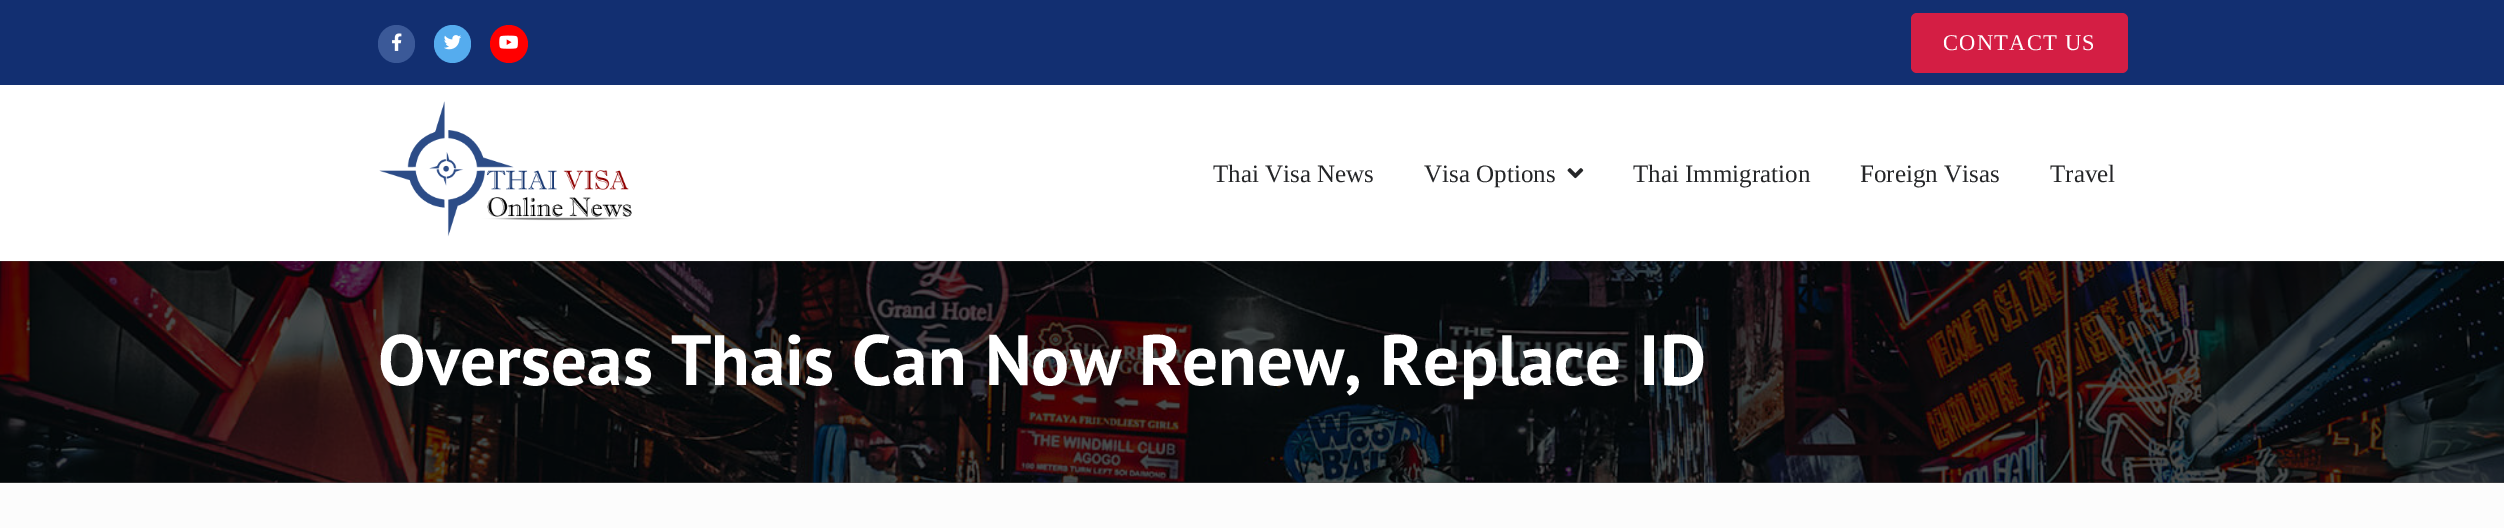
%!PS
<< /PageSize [2504 528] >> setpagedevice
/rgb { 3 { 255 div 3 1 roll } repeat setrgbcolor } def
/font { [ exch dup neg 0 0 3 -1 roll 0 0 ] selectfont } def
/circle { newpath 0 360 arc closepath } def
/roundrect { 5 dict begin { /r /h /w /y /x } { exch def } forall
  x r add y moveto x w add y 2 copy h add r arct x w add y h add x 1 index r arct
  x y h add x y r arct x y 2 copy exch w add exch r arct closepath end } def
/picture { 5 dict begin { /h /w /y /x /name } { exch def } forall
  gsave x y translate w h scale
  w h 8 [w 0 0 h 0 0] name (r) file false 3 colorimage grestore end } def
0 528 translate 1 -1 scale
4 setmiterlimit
252 252 252 rgb
0 0 2504 528 rectfill
18 47 113 rgb
0 0 2504 85 rectfill
59 89 152 rgb
378 25 37 38 18.5 roundrect fill
(img/1.rgb) 392 33 10 18 picture
85 172 238 rgb
434 25 37 38 18.5 roundrect fill
(img/2.rgb) 444 35 18 15 picture
255 0 0 rgb
509 44 19 circle fill
(img/3.rgb) 499 35 19 14 picture
212 30 68 rgb
1911 13 217 60 6 roundrect fill
255 255 255 rgb
0 85 2504 176 rectfill
(img/4.rgb) 379 101 253 136 picture
(img/5.rgb) 1567 168 17 11 picture
76 76 76 rgb
0 261 2504 222 rectfill
(img/6.rgb) 0 261 2504 222 picture
/LiberationSerif-Regular 22.5 font
255 255 255 rgb
1943 50 moveto 1.25 0 (CONTACT US) ashow
/LiberationSerif-Regular 25 font
37 38 40 rgb
[
  [(Thai Visa News) 1213 182]
  [(Visa Options) 1424 182]
  [(Thai Immigration) 1633 182]
  [(Foreign Visas) 1860 182]
  [(Travel) 2050 182]
] { aload pop moveto show } forall
/PTSans-Bold 71.25 font
255 255 255 rgb
378 385 moveto (Overseas Thais Can Now Renew, Replace ID) show
showpage
